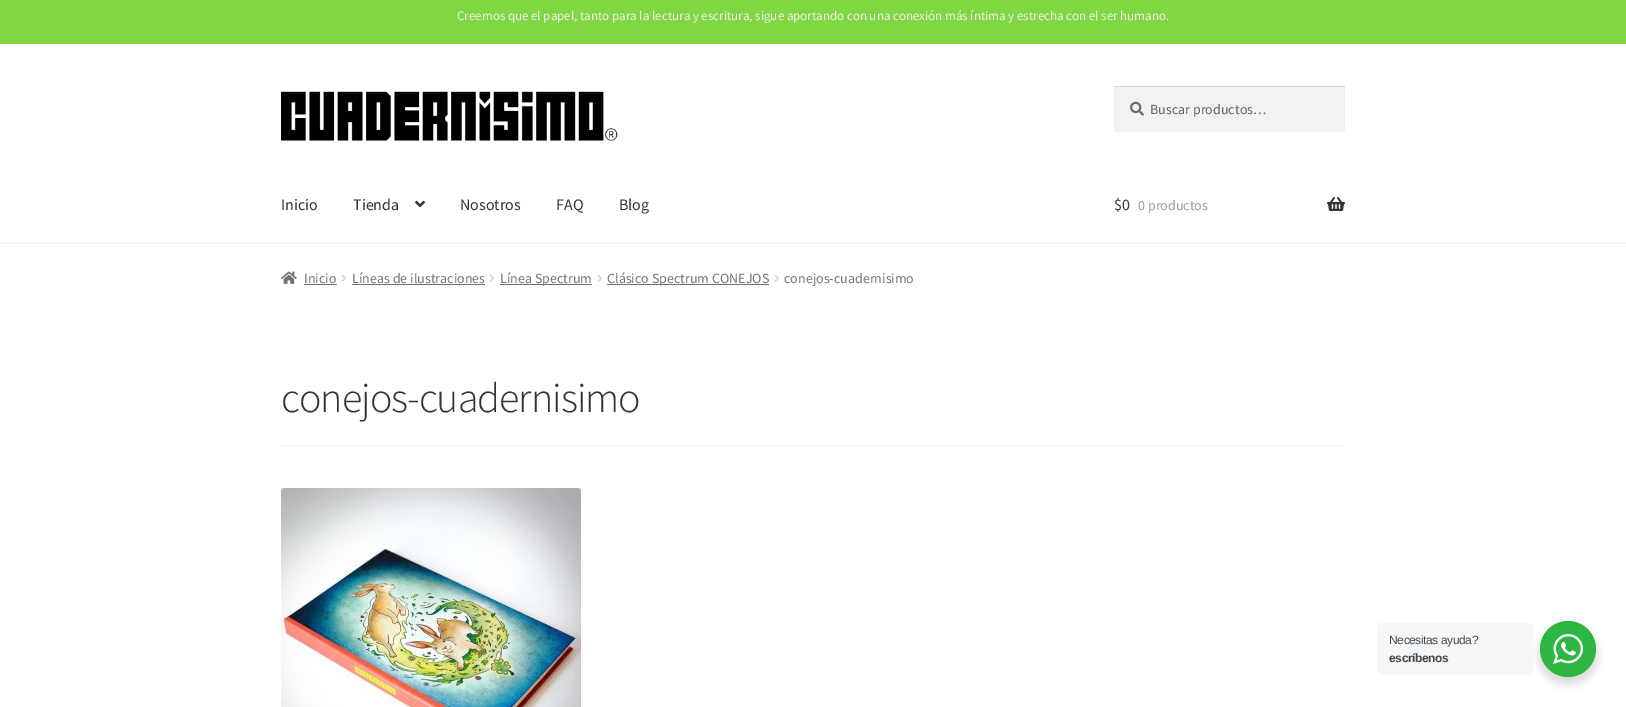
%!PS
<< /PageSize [1626 707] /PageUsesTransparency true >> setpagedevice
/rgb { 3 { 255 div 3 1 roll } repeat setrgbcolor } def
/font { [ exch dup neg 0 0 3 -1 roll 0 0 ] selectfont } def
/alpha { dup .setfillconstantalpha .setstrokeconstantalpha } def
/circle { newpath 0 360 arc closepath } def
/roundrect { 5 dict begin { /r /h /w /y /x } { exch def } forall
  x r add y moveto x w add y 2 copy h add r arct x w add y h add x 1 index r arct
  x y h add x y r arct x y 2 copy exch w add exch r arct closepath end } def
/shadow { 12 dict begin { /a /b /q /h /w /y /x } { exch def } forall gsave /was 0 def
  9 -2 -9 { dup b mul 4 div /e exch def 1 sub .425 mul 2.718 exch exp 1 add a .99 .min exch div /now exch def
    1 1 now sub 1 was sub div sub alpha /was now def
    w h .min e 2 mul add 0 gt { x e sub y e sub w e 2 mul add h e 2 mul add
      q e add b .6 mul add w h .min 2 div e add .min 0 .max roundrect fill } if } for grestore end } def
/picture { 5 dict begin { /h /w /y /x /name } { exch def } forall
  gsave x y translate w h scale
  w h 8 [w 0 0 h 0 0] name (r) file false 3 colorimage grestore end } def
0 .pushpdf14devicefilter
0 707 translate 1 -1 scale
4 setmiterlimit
255 255 255 rgb
0 0 1626 707 rectfill
129 215 66 rgb
0 0 1626 44 rectfill
240 240 240 rgb
0 243 1626 1 rectfill
(img/1.rgb) 281 91 337 50 picture
242 242 242 rgb
1114 87 231 45 rectfill
(img/2.rgb) 1130 101 14 15 picture
212 212 212 rgb
1114 86 231 1 rectfill
(img/3.rgb) 415 200 10 8 picture
(img/4.rgb) 1327 197 18 14 picture
(img/5.rgb) 281 271 16 13 picture
114 114 114 rgb
304 284 33 1 rectfill
(img/6.rgb) 341 274 6 8 picture
352 284 133 1 rectfill
(img/6.rgb) 489 274 6 8 picture
500 284 92 1 rectfill
(img/6.rgb) 597 274 6 8 picture
607 284 162 1 rectfill
(img/6.rgb) 774 274 6 8 picture
242 242 242 rgb
281 445 1064 1 rectfill
(img/7.rgb) 281 488 300 219 picture
0 0 0 rgb
1538 625 60 60 30 4 0.14 shadow
245 247 249 rgb
1377 623 156 52 4 roundrect fill
45 183 66 rgb
1568 649 28 circle fill
(img/8.rgb) 1553 634 30 30 picture
/SourceSansPro-Regular 13 font
239 239 239 rgb
457 20 moveto (Creemos que el papel, tanto para la lectura y escritura, sigue aportando con una conexión más íntima y estrecha con el ser humano.) show
/SourceSansPro-Regular 14 font
97 97 97 rgb
1150 114 moveto (Buscar productos…) show
/SourceSansPro-Regular 16 font
51 51 51 rgb
[
  [(Inicio) 281 210]
  [(Tienda) 353 210]
  [(Nosotros) 460 210]
  [(FAQ) 556 210]
  [(Blog) 619 210]
  [($0) 1114 210]
] { aload pop moveto show } forall
/SourceSansPro-Regular 14 font
153 153 153 rgb
1138 210 moveto (0 productos) show
114 114 114 rgb
[
  [(Inicio) 304 283]
  [(Líneas de ilustraciones) 352 283]
  [(Línea Spectrum) 500 283]
  [(Clásico Spectrum CONEJOS) 607 283]
  [(conejos-cuadernisimo) 784 283]
] { aload pop moveto show } forall
/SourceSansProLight-Light 42 font
51 51 51 rgb
281 412 moveto -1 0 (conejos-cuadernisimo) ashow
/LiberationSans-Regular 12 font
67 71 78 rgb
1389 644 moveto -0.4 0 (Necesitas ayuda?) ashow
/LiberationSans-Bold 12 font
1389 662 moveto -0.4 0 (escríbenos) ashow
.poppdf14devicefilter showpage
